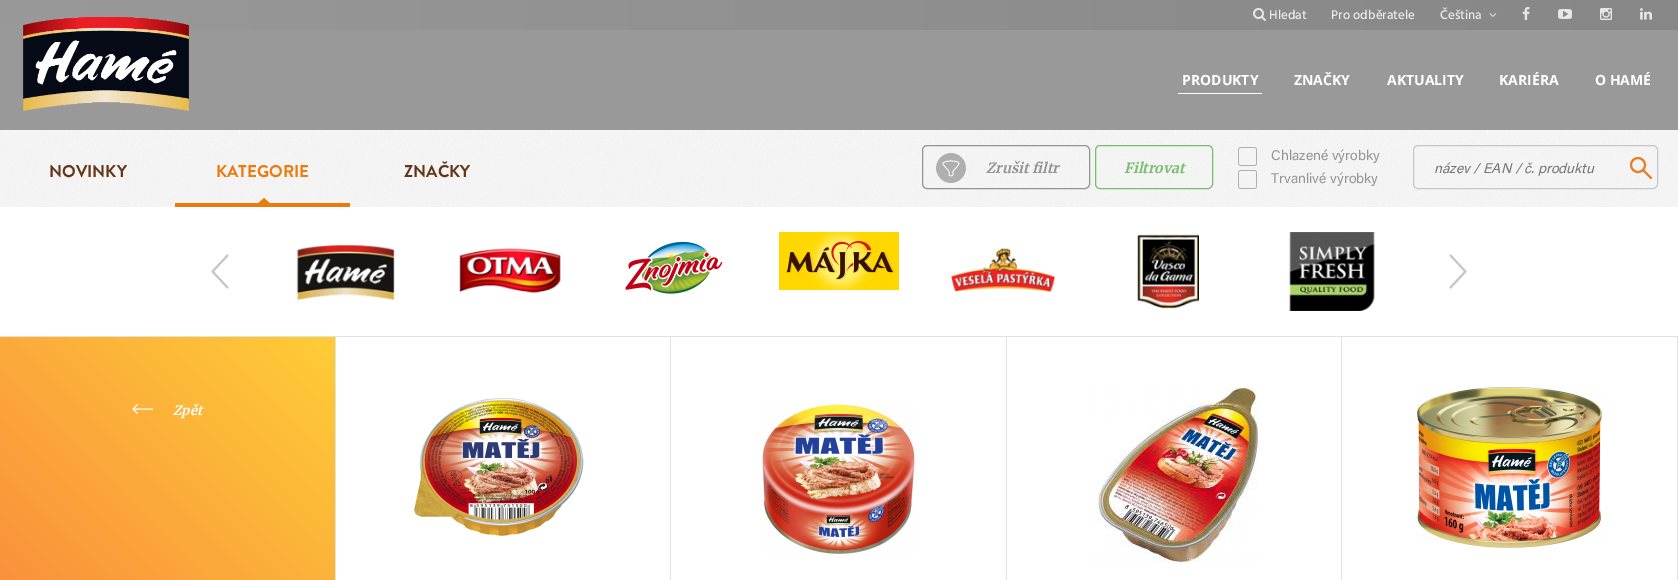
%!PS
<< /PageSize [1678 580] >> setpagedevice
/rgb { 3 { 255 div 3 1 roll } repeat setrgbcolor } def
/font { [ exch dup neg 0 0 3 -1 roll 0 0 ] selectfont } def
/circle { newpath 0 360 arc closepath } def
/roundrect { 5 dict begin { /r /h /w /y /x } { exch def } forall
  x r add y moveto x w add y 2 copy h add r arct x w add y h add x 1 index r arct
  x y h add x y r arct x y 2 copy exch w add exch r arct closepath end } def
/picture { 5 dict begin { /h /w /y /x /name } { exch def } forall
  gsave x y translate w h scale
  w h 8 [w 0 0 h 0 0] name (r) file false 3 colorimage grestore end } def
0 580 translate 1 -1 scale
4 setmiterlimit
255 255 255 rgb
0 0 1678 580 rectfill
153 153 153 rgb
0 30 1678 100 rectfill
gsave 0 0 moveto 1678 0 lineto 1678 30 lineto 0 30 lineto closepath clip newpath
<< /ShadingType 2 /ColorSpace /DeviceRGB /Coords [0 15 1678 15] /Extend [true true] /Function << /FunctionType 2 /Domain [0 1] /C0 [0.6 0.6 0.6] /C1 [0.529 0.529 0.529] /N 1 >> >> shfill grestore
(img/1.rgb) 1253 8 13 13 picture
(img/2.rgb) 1489 13 8 4 picture
(img/3.rgb) 1522 7 8 13 picture
(img/4.rgb) 1558 9 14 10 picture
(img/5.rgb) 1600 8 12 12 picture
(img/6.rgb) 1640 8 12 12 picture
(img/7.rgb) 23 17 166 94 picture
255 255 255 rgb
1178 93 84 1 rectfill
(img/8.rgb) 0 130 1678 77 picture
234 123 15 rgb
175 203 175 4 rectfill
274 207 moveto 254 207 lineto 264 198 lineto closepath fill
148 148 148 rgb
922.5 145.5 167 43 4.5 roundrect stroke
(img/9.rgb) 936 153 30 30 picture
121 189 111 rgb
1095.5 145.5 117 43 4.5 roundrect stroke
(img/10.rgb) 1238 147 19 19 picture
(img/11.rgb) 1238 170 19 19 picture
200 199 199 rgb
1413.5 145.5 244 43 4.5 roundrect stroke
233 124 36 rgb
2 setlinewidth
1638 165 7 circle stroke
1 setlinecap
1 setlinejoin
1643 170 moveto 1651 178 lineto stroke
200 199 199 rgb
227.5 255.5 moveto 212.5 271.5 lineto 227.5 287.5 lineto stroke
(img/12.rgb) 296 245 99 56 picture
(img/13.rgb) 459 248 102 45 picture
(img/14.rgb) 625 241 98 53 picture
(img/15.rgb) 779 232 120 58 picture
(img/16.rgb) 951 248 104 44 picture
(img/17.rgb) 1137 234 62 75 picture
(img/18.rgb) 1289 232 86 79 picture
1450.5 287.5 moveto 1465.5 271.5 lineto 1450.5 255.5 lineto stroke
gsave 0 337 moveto 335 337 lineto 335 580 lineto 0 580 lineto closepath clip newpath
<< /ShadingType 2 /ColorSpace /DeviceRGB /Coords [-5.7 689 341 343] /Extend [true true] /Function << /FunctionType 2 /Domain [0 1] /C0 [0.976 0.522 0.239] /C1 [1 0.804 0.216] /N 1 >> >> shfill grestore
225 225 225 rgb
0 336 1678 1 rectfill
335 336 1 244 rectfill
255 255 255 rgb
1 setlinewidth
0 setlinecap
0 setlinejoin
137.5 404.5 moveto 133 409 lineto 137.5 413.5 lineto 153 409 moveto 133 409 lineto stroke
225 225 225 rgb
670 336 1 244 rectfill
(img/19.rgb) 414 398 170 138 picture
1006 336 1 244 rectfill
(img/20.rgb) 762 404 153 150 picture
1341 336 1 244 rectfill
(img/21.rgb) 1089 387 170 177 picture
1677 336 1 244 rectfill
(img/22.rgb) 1417 387 185 161 picture
/Hind-Medium 13 font
235 235 235 rgb
[
  [(Hledat) 1269 19]
  [(Pro odběratele) 1331 19]
  [(Čeština) 1440 19]
] { aload pop moveto show } forall
/OpenSans-Bold 14 font
255 255 255 rgb
[
  [(PRODUKTY) 1182 85]
  [(ZNAČKY) 1294 85]
  [(AKTUALITY) 1387 85]
  [(KARIÉRA) 1499 85]
  [(O HAMÉ) 1595 85]
] { aload pop moveto show } forall
/BrandonGrotesque-Bold 17 font
100 54 24 rgb
49 177 moveto (NOVINKY) show
234 123 15 rgb
216 177 moveto (KATEGORIE) show
100 54 24 rgb
404 177 moveto (ZNAČKY) show
/Merriweather-LightItalic 14 font
148 148 148 rgb
986 173 moveto (Zrušit filtr) show
121 189 111 rgb
1124 173 moveto (Filtrovat) show
/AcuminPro-Regular 14 font
148 148 148 rgb
1271 160 moveto (Chlazené výrobky) show
1271 183 moveto (Trvanlivé výrobky) show
/AcuminPro-Italic 14 font
117 117 117 rgb
1434 173 moveto (název / EAN / č. produktu) show
/Merriweather-LightItalic 13 font
255 255 255 rgb
173 415 moveto (Zpět) show
showpage
